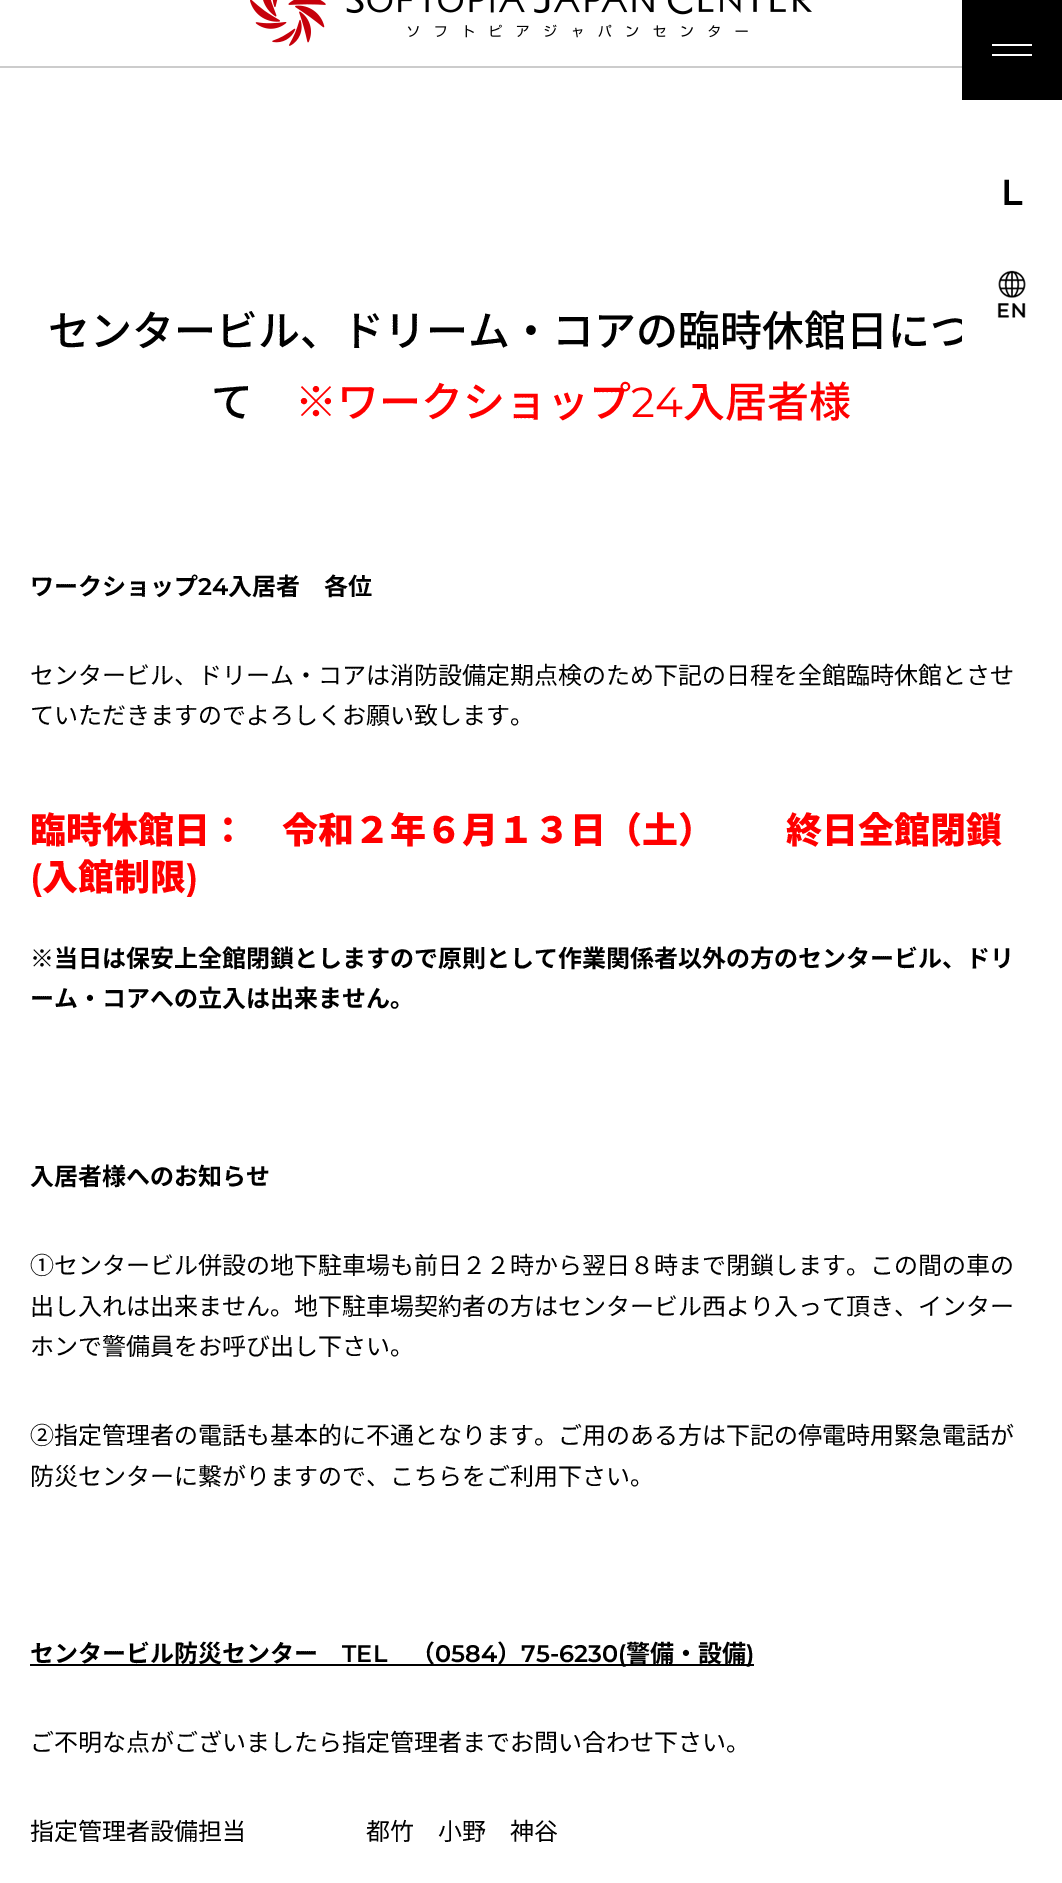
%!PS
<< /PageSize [1062 1883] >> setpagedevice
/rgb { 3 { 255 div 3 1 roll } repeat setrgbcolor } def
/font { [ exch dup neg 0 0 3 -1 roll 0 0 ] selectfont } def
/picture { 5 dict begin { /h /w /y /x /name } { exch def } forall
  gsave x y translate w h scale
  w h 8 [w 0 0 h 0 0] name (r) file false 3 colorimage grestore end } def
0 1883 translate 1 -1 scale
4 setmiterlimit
255 255 255 rgb
0 0 1062 1883 rectfill
204 204 204 rgb
0 66 962 2 rectfill
(img/1.rgb) 250 0 562 46 picture
[
  [962 0 100 100 0 0 0]
  [992 44 40 2 255 255 255]
  [992 54 40 2 255 255 255]
  [30 1664 724 2 0 0 0]
] { aload pop rgb rectfill } forall
/Montserrat-SemiBold 36 font
1001 205 moveto (L) show
/NotoSansJP-Medium 42 font
48 346 moveto (センタービル、ドリーム・コアの臨時休館日につ) show
(img/2.rgb) 962 270 64 74 picture
211 417 moveto (て) show
255 0 0 rgb
295 417 moveto (※ワークショップ) show
/Montserrat-Regular 42 font
631 417 moveto (24) show
/NotoSansJP-Medium 42 font
683 417 moveto (入居者様) show
/NotoSansJP-Bold 24 font
0 0 0 rgb
30 595 moveto (ワークショップ) show
/Montserrat-SemiBold 24 font
198 595 moveto (24) show
/NotoSansJP-Bold 24 font
228 595 moveto (入居者　各位) show
/NotoSansJP-Regular 24 font
30 684 moveto (センタービル、ドリーム・コアは消防設備定期点検のため下記の日程を全館臨時休館とさせ) show
30 724 moveto (ていただきますのでよろしくお願い致します。) show
/NotoSansJP-Black 36 font
255 0 0 rgb
30 843 moveto (臨時休館日：　令和２年６月１３日（土）　　終日全館閉鎖) show
/Montserrat-SemiBold 36 font
30 890 moveto (\() show
/NotoSansJP-Black 36 font
42 890 moveto (入館制限) show
/Montserrat-SemiBold 36 font
186 890 moveto (\)) show
/NotoSansJP-Bold 24 font
0 0 0 rgb
[
  [(※当日は保安上全館閉鎖としますので原則として作業関係者以外の方のセンタービル、ドリ) 30 967]
  [(ーム・コアへの立入は出来ません。) 30 1007]
  [(入居者様へのお知らせ) 30 1185]
] { aload pop moveto show } forall
/NotoSansJP-Regular 24 font
[
  [(①センタービル併設の地下駐車場も前日２２時から翌日８時まで閉鎖します。この間の車の) 30 1274]
  [(出し入れは出来ません。地下駐車場契約者の方はセンタービル西より入って頂き、インター) 30 1315]
  [(ホンで警備員をお呼び出し下さい。) 30 1355]
  [(②指定管理者の電話も基本的に不通となります。ご用のある方は下記の停電時用緊急電話が) 30 1444]
  [(防災センターに繋がりますので、こちらをご利用下さい。) 30 1485]
] { aload pop moveto show } forall
/NotoSansJP-Bold 24 font
30 1662 moveto (センタービル防災センター) show
/Montserrat-SemiBold 24 font
342 1662 moveto (TEL) show
/NotoSansJP-Bold 24 font
411 1662 moveto (（) show
/Montserrat-SemiBold 24 font
435 1662 moveto (0584) show
/NotoSansJP-Bold 24 font
497 1662 moveto (）) show
/Montserrat-SemiBold 24 font
521 1662 moveto (75-6230\() show
/NotoSansJP-Bold 24 font
626 1662 moveto (警備・設備) show
/Montserrat-SemiBold 24 font
746 1662 moveto (\)) show
/NotoSansJP-Regular 24 font
30 1751 moveto (ご不明な点がございましたら指定管理者までお問い合わせ下さい。) show
30 1840 moveto (指定管理者設備担当　　　　　都竹　小野　神谷) show
showpage
